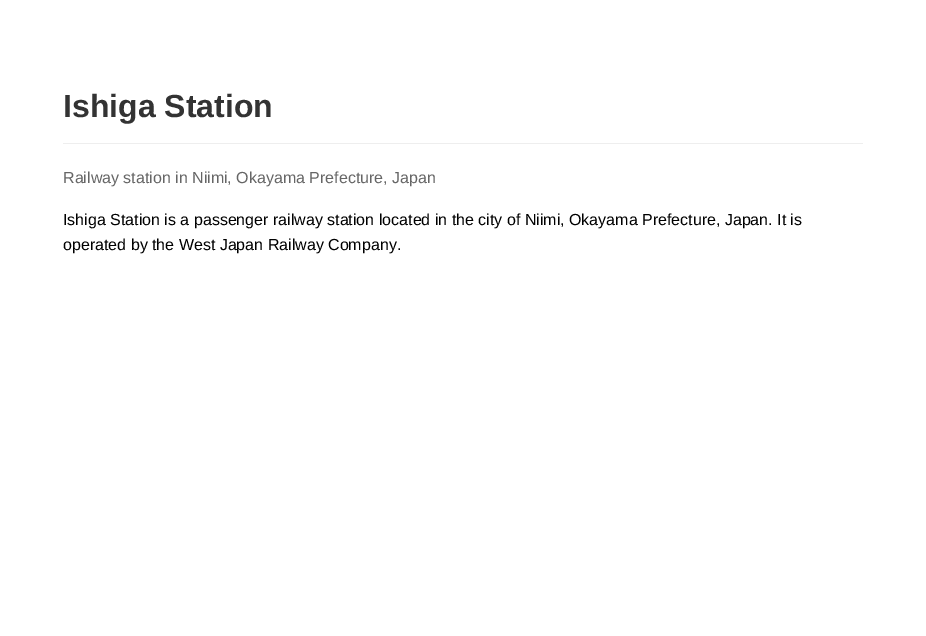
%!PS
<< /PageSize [926 636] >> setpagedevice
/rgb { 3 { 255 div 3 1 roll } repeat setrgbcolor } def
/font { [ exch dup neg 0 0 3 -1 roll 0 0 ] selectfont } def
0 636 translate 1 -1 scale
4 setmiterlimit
255 255 255 rgb
0 0 926 636 rectfill
238 238 238 rgb
63 143 800 1 rectfill
/LiberationSans-Bold 32 font
51 51 51 rgb
63 117 moveto (Ishiga Station) show
/LiberationSans-Regular 16 font
102 102 102 rgb
63 183 moveto (Railway station in Niimi, Okayama Prefecture, Japan) show
0 0 0 rgb
63 225 moveto (Ishiga Station is a passenger railway station located in the city of Niimi, Okayama Prefecture, Japan. It is) show
63 250 moveto (operated by the West Japan Railway Company.) show
showpage
